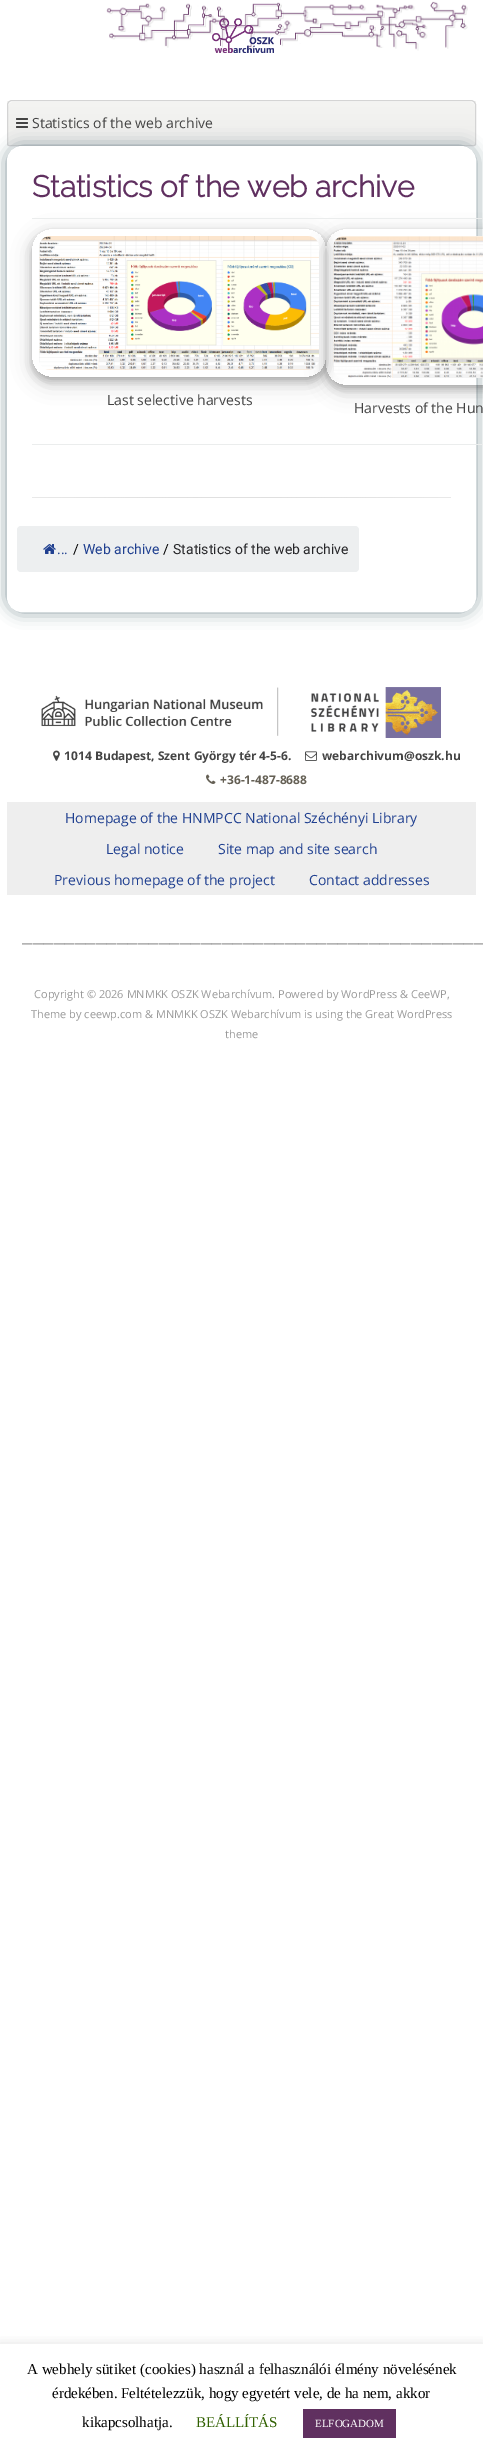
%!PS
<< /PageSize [483 2455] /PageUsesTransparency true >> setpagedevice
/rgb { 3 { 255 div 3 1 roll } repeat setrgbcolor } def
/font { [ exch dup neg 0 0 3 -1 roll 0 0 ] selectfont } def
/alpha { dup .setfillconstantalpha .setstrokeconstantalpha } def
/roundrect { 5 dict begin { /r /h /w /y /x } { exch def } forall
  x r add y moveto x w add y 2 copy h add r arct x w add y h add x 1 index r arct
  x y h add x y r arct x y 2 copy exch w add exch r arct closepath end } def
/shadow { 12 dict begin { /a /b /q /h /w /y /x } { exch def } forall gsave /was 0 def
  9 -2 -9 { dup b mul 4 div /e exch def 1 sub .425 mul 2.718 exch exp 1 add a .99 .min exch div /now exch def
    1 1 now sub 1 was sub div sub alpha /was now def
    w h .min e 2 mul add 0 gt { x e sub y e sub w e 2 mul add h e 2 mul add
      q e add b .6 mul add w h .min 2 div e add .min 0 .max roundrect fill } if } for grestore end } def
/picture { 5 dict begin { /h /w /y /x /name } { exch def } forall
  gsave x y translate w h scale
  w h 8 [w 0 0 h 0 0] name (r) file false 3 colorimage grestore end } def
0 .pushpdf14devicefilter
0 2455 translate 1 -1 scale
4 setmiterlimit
255 255 255 rgb
0 0 483 2455 rectfill
(img/1.rgb) 106 1 362 50 picture
(img/2.rgb) 212 18 62 35 picture
gsave
12 100 moveto 471 100 lineto 474 100 476 102 476 105 curveto 476 144 lineto 476 145 475 146 474 146 curveto 9 146 lineto 8 146 7 145 7 144 curveto 7 105 lineto 7 102 9 100 12 100 curveto closepath clip newpath
gsave 7 101 moveto 476 101 lineto 476 145 lineto 7 145 lineto closepath clip newpath
<< /ShadingType 2 /ColorSpace /DeviceRGB /Coords [242 101 242 145] /Extend [true true] /Function << /FunctionType 2 /Domain [0 1] /C0 [0.957 0.957 0.949] /C1 [0.929 0.929 0.922] /N 1 >> >> shfill grestore
grestore
253 253 252 rgb
12 102 moveto 471 102 lineto 473 102 475 104 475 106 curveto 475 103 474 101 471 101 curveto 12 101 lineto 9 101 8 103 8 106 curveto 8 104 10 102 12 102 curveto closepath fill
212 212 212 rgb
12 100.5 moveto 471 100.5 lineto 473.5 100.5 475.5 102.5 475.5 105 curveto 475.5 144 lineto 475.5 145 475 145.5 474 145.5 curveto 9 145.5 lineto 8 145.5 7.5 145 7.5 144 curveto 7.5 105 lineto 7.5 102.5 9.5 100.5 12 100.5 curveto closepath stroke
133 150 159 rgb
7 146 469 466 15 8 1 shadow
(img/3.rgb) 16 118 12 10 picture
255 255 255 rgb
12 151 459 456 10 roundrect gsave fill grestore
10 setlinewidth
stroke
(img/4.rgb) 32 497 419 1 picture
235 237 237 rgb
32 444 451 1 rectfill
gsave
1 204 moveto 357 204 lineto 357 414 lineto 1 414 lineto closepath 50 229 moveto 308 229 lineto 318 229 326 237 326 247 curveto 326 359 lineto 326 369 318 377 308 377 curveto 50 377 lineto 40 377 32 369 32 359 curveto 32 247 lineto 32 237 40 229 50 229 curveto closepath eoclip newpath
0 0 0 rgb
32 235 294 148 18 10 0.19 shadow
grestore
gsave
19 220 moveto 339 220 lineto 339 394 lineto 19 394 lineto closepath 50 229 moveto 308 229 lineto 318 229 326 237 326 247 curveto 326 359 lineto 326 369 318 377 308 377 curveto 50 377 lineto 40 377 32 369 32 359 curveto 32 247 lineto 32 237 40 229 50 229 curveto closepath eoclip newpath
0 0 0 rgb
32 233 294 148 18 4 0.2 shadow
grestore
gsave
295 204 moveto 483 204 lineto 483 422 lineto 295 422 lineto closepath 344 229 moveto 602 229 lineto 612 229 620 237 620 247 curveto 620 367 lineto 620 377 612 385 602 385 curveto 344 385 lineto 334 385 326 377 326 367 curveto 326 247 lineto 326 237 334 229 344 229 curveto closepath eoclip newpath
0 0 0 rgb
326 235 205 156 18 10 0.19 shadow
grestore
gsave
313 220 moveto 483 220 lineto 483 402 lineto 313 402 lineto closepath 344 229 moveto 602 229 lineto 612 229 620 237 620 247 curveto 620 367 lineto 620 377 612 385 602 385 curveto 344 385 lineto 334 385 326 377 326 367 curveto 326 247 lineto 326 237 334 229 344 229 curveto closepath eoclip newpath
0 0 0 rgb
326 233 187 156 18 4 0.2 shadow
grestore
(img/5.rgb) 39 236 280 134 picture
32 218 451 1 rectfill
(img/6.rgb) 333 236 150 142 picture
237 239 240 rgb
17 526 342 46 4 roundrect fill
(img/7.rgb) 43 544 13 10 picture
(img/8.rgb) 41 687 400 51 picture
(img/9.rgb) 53 750 7 11 picture
(img/10.rgb) 305 751 12 10 picture
(img/11.rgb) 206 774 10 10 picture
238 238 238 rgb
7 802 469 93 rectfill
gsave
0 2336 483 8 rectclip
172 171 171 rgb
0 2343 483 111 0 5 0.3 shadow
grestore
96 48 96 rgb
303 2409 93 29 rectfill
/OpenSans-Regular 14 font
68 68 68 rgb
32 128 moveto (Statistics of the web archive) show
/Raleway-Bold 30 font
96 48 96 rgb
32 197 moveto (Statistics of the web archive) show
/OpenSans-Regular 14 font
68 68 68 rgb
107 405 moveto (Last selective harvests) show
354 413 moveto (Harvests of the Hun) show
/Roboto-Regular 14 font
32 64 144 rgb
57 554 moveto (...) show
0 0 0 rgb
73 554 moveto (/) show
32 64 144 rgb
83 554 moveto (Web archive) show
0 0 0 rgb
163 554 moveto (/) show
39 39 42 rgb
173 554 moveto (Statistics of the web archive) show
/OpenSans-Bold 12 font
68 68 68 rgb
64 760 moveto (1014 Budapest, Szent György tér 4-5-6.) show
322 760 moveto (webarchivum@oszk.hu) show
100 95 84 rgb
220 784 moveto (+36-1-487-8688) show
/OpenSans-Regular 14 font
32 64 144 rgb
[
  [(Homepage of the HNMPCC National Széchényi Library) 65 823]
  [(Legal notice) 106 854]
  [(Site map and site search) 218 854]
  [(Previous homepage of the project) 54 885]
  [(Contact addresses) 309 885]
] { aload pop moveto show } forall
/OpenSans-Regular 24 font
153 153 153 rgb
22 941 moveto (____________________________________________) show
/OpenSans-Regular 11 font
[
  [(Copyright © 2026 MNMKK OSZK Webarchívum. Powered by WordPress & CeeWP,) 34 998]
  [(Theme by ceewp.com & MNMKK OSZK Webarchívum is using the Great WordPress) 31 1018]
  [(theme) 225 1038]
] { aload pop moveto show } forall
/LiberationSerif-Regular 15 font
0 0 0 rgb
[
  [(A webhely sütiket \(cookies\) használ a felhasználói élmény növelésének) 27 2374]
  [(érdekében. Feltételezzük, hogy egyetért vele, de ha nem, akkor) 52 2398]
  [(kikapcsolhatja.) 82 2427]
] { aload pop moveto show } forall
48 96 0 rgb
196 2427 moveto (BEÁLLÍTÁS) show
/LiberationSerif-Regular 11 font
255 255 255 rgb
315 2427 moveto (ELFOGADOM) show
.poppdf14devicefilter showpage
